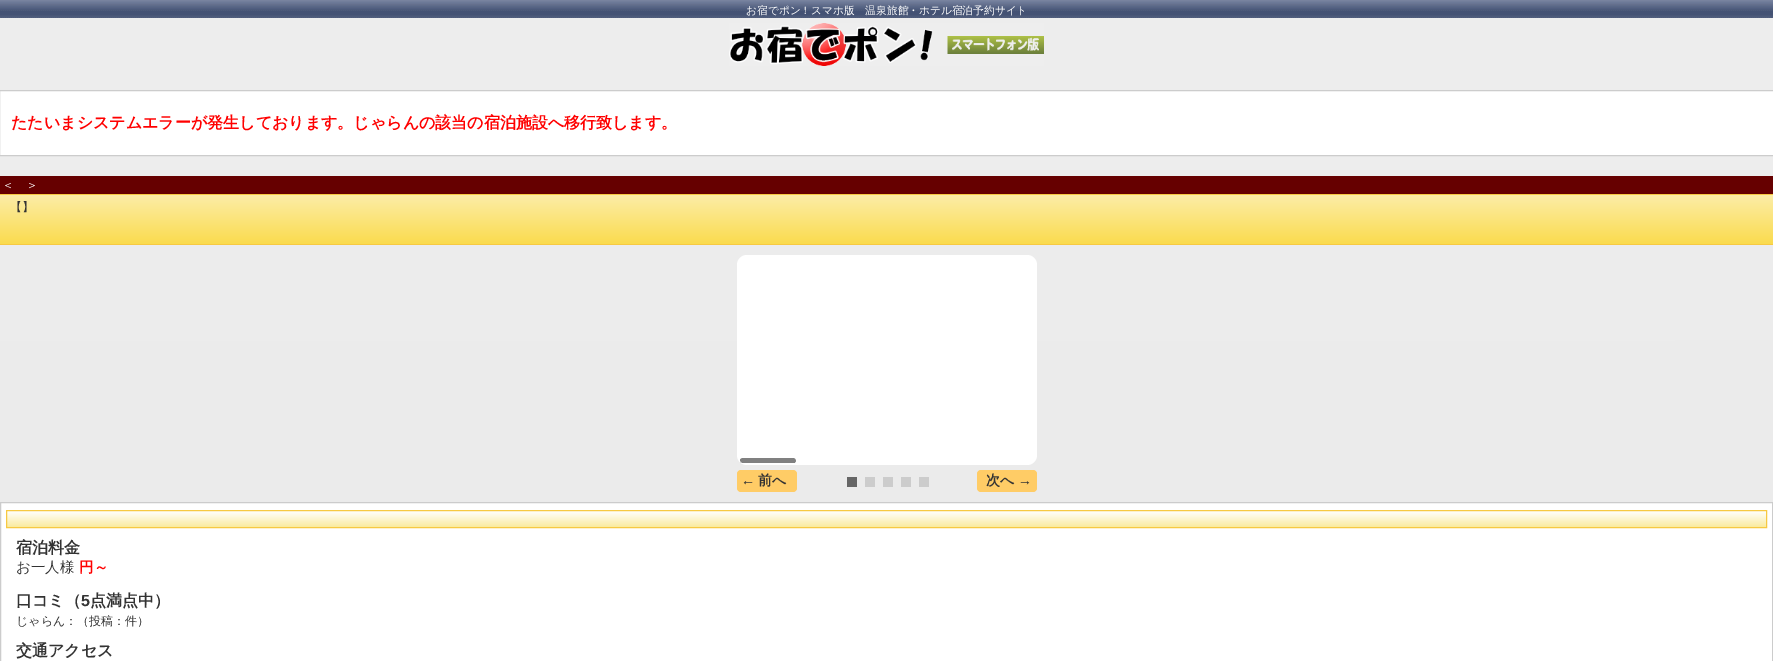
%!PS
<< /PageSize [1773 661] /PageUsesTransparency true >> setpagedevice
/rgb { 3 { 255 div 3 1 roll } repeat setrgbcolor } def
/font { [ exch dup neg 0 0 3 -1 roll 0 0 ] selectfont } def
/alpha { dup .setfillconstantalpha .setstrokeconstantalpha } def
/roundrect { 5 dict begin { /r /h /w /y /x } { exch def } forall
  x r add y moveto x w add y 2 copy h add r arct x w add y h add x 1 index r arct
  x y h add x y r arct x y 2 copy exch w add exch r arct closepath end } def
/picture { 5 dict begin { /h /w /y /x /name } { exch def } forall
  gsave x y translate w h scale
  w h 8 [w 0 0 h 0 0] name (r) file false 3 colorimage grestore end } def
0 .pushpdf14devicefilter
0 661 translate 1 -1 scale
4 setmiterlimit
255 255 255 rgb
0 0 1773 661 rectfill
gsave 0 18 moveto 1773 18 lineto 1773 502 lineto 0 502 lineto closepath clip newpath
<< /ShadingType 2 /ColorSpace /DeviceRGB /Coords [886 0 887 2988] /Extend [true true] /Function << /FunctionType 2 /Domain [0 1] /C0 [0.933 0.933 0.933] /C1 [0.867 0.867 0.867] /N 1 >> >> shfill grestore
(img/1.rgb) 0 0 1773 18 picture
(img/2.rgb) 729 23 315 43 picture
-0.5 90.5 moveto 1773.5 90.5 lineto 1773.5 155.5 lineto -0.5 155.5 lineto closepath gsave fill grestore
204 204 204 rgb
stroke
102 0 0 rgb
0 176 1773 18 rectfill
gsave 0 195 moveto 1773 195 lineto 1773 244 lineto 0 244 lineto closepath clip newpath
<< /ShadingType 2 /ColorSpace /DeviceRGB /Coords [887 195 887 244] /Extend [true true] /Function << /FunctionType 2 /Domain [0 1] /C0 [0.988 0.929 0.655] /C1 [0.98 0.859 0.306] /N 1 >> >> shfill grestore
247 201 66 rgb
0 194 1773 1 rectfill
0 244 1773 1 rectfill
255 255 255 rgb
737 255 300 210 10 roundrect fill
128 128 128 rgb
740 458 56 5 2 roundrect fill
0.9 alpha
255 255 255 rgb
742 457 moveto 740 457 739 459 739 461 curveto 740 462 741 463 743 464 curveto 794 464 lineto 796 464 797 463 797 461 curveto 797 460 lineto 797 458 796 457 794 457 curveto closepath 742 458 moveto 739 458 739 462 742 463 curveto 795 463 lineto 797 462 796 458 794 458 curveto closepath eofill
1 alpha
255 204 102 rgb
737 470 60 22 4 roundrect fill
[
  [847 477 10 10 102 102 102]
  [865 477 10 10 204 204 204]
  [883 477 10 10 204 204 204]
  [901 477 10 10 204 204 204]
  [919 477 10 10 204 204 204]
] { aload pop rgb rectfill } forall
255 204 102 rgb
977 470 60 22 4 roundrect fill
204 204 204 rgb
0.5 502.5 1772 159 rectstroke
gsave 7 511 moveto 1766 511 lineto 1766 527 lineto 7 527 lineto closepath clip newpath
<< /ShadingType 2 /ColorSpace /DeviceRGB /Coords [887 511 887 527] /Extend [true true] /Function << /FunctionType 2 /Domain [0 1] /C0 [1 1 1] /C1 [0.98 0.922 0.62] /N 1 >> >> shfill grestore
247 201 66 rgb
6.5 510.5 1760 17 rectstroke
/WenQuanYiZenHei-Medium 10.7 font
255 255 255 rgb
746 14 moveto (お宿でポン！スマホ版　温泉旅館・ホテル宿泊予約サイト) show
/WenQuanYiZenHei-Bold 16 font
255 0 0 rgb
11 128 moveto (たたいまシステムエラーが発生しております。じゃらんの該当の宿泊施設へ移行致します。) show
/WenQuanYiZenHei-Medium 12 font
255 255 255 rgb
2 189 moveto (＜　＞) show
51 51 51 rgb
10 211 moveto (【】) show
/LiberationSans-Bold 14 font
741 485 moveto (←) show
/WenQuanYiZenHei-Bold 14 font
758 485 moveto (前へ) show
986 485 moveto (次へ) show
/LiberationSans-Bold 14 font
1018 485 moveto (→) show
/WenQuanYiZenHei-Bold 16 font
16 553 moveto (宿泊料金) show
/WenQuanYiZenHei-Medium 14.5 font
16 572 moveto (お一人様) show
/WenQuanYiZenHei-Bold 14.5 font
255 0 0 rgb
79 572 moveto (円～) show
/WenQuanYiZenHei-Bold 16 font
51 51 51 rgb
16 606 moveto (口コミ（) show
/LiberationSans-Bold 16 font
81 606 moveto (5) show
/WenQuanYiZenHei-Bold 16 font
90 606 moveto (点満点中）) show
/WenQuanYiZenHei-Medium 12 font
16 625 moveto (じゃらん：（投稿：件）) show
/WenQuanYiZenHei-Bold 16 font
16 656 moveto (交通アクセス) show
.poppdf14devicefilter showpage
